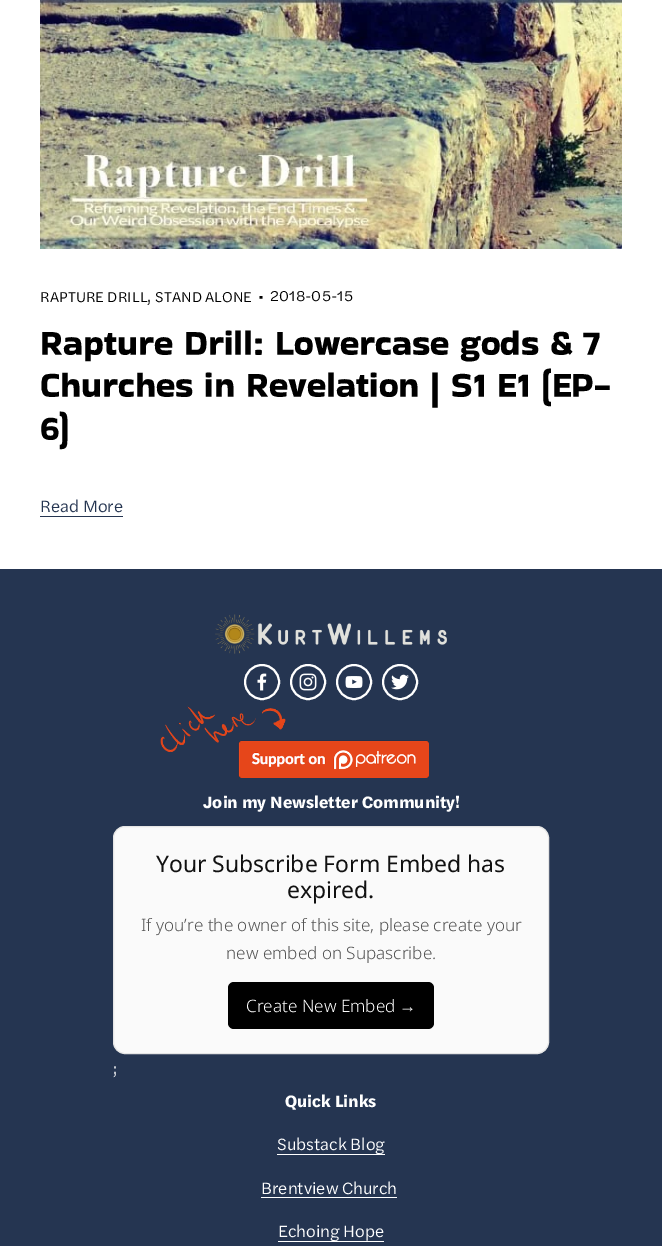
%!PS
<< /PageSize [662 1246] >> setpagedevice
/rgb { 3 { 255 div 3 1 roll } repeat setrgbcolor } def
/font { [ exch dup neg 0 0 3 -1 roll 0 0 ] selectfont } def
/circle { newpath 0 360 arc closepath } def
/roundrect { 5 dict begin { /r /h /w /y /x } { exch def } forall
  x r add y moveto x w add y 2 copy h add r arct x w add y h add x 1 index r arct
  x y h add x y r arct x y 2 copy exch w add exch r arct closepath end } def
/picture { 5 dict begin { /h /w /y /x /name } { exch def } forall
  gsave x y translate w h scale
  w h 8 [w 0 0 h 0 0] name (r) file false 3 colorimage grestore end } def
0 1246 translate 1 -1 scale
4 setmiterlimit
255 255 255 rgb
0 0 662 1246 rectfill
(img/1.rgb) 40 0 582 249 picture
37 53 81 rgb
40 516 83 1 rectfill
0 569 662 677 rectfill
(img/2.rgb) 215 614 232 40 picture
255 255 255 rgb
2 setlinewidth
262 682 17 circle stroke
(img/3.rgb) 257 673 10 18 picture
308 682 17 circle stroke
(img/4.rgb) 299 673 18 18 picture
354 682 17 circle stroke
(img/5.rgb) 345 676 18 12 picture
400 682 17 circle stroke
(img/6.rgb) 391 674 18 16 picture
(img/7.rgb) 160 706 269 72 picture
250 250 250 rgb
113.5 826.5 435 227 11.5 roundrect gsave fill grestore
229 229 229 rgb
1 setlinewidth
stroke
0 0 0 rgb
228 982 206 47 6 roundrect fill
[
  [277 1154 108 1 255 255 255]
  [261 1197 136 1 255 255 255]
  [278 1241 106 1 255 255 255]
] { aload pop rgb rectfill } forall
/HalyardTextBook-Regular 15 font
0 0 0 rgb
40 302 moveto 0.1 0 (RAPTURE DRILL) ashow
/HalyardTextBook-Regular 17.1 font
147 302 moveto (,) show
/HalyardTextBook-Regular 15 font
155 302 moveto 0.1 0 (STAND ALONE) ashow
/HalyardTextBook-Regular 17.1 font
258 302 moveto (•) show
/HalyardTextBook-Regular 15 font
270 301 moveto 0.1 0 (2018-05-15) ashow
/BakbakOne-Regular 35.75 font
[
  [(Rapture Drill: Lowercase gods & 7) 40 355]
  [(Churches in Revelation | S1 E1 \(EP-) 40 397]
  [(6\)) 40 440]
] { aload pop moveto show } forall
/HalyardTextBook-Regular 17.1 font
37 53 81 rgb
40 512 moveto (Read More) show
/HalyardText-Bold 17.1 font
255 255 255 rgb
203 808 moveto (Join my Newsletter Community!) show
/NotoSans-Regular 22.9 font
17 17 17 rgb
156 872 moveto (Your Subscribe Form Embed has) show
287 898 moveto (expired.) show
/NotoSans-Light 17.1 font
85 85 85 rgb
141 931 moveto (If you’re the owner of this site, please create your) show
226 959 moveto (new embed on Supascribe.) show
255 255 255 rgb
246 1012 moveto (Create New Embed) show
/LiberationSans-Regular 17.1 font
399 1012 moveto (→) show
/HalyardTextBook-Regular 17.1 font
113 1074 moveto (;) show
/HalyardText-Bold 17.1 font
285 1107 moveto (Quick Links) show
/HalyardTextBook-Regular 17.1 font
[
  [(Substack Blog) 277 1150]
  [(Brentview Church) 261 1194]
  [(Echoing Hope) 278 1237]
] { aload pop moveto show } forall
showpage
